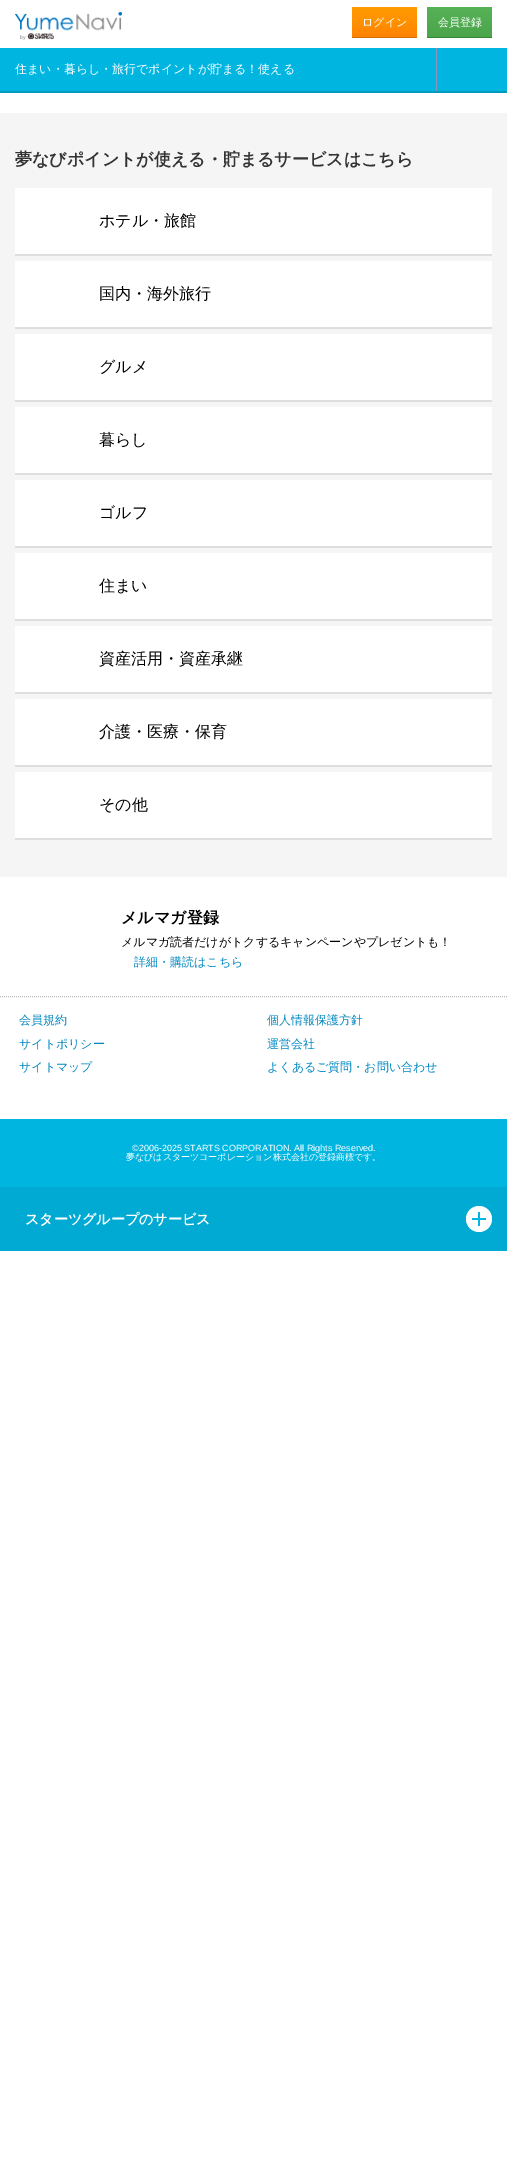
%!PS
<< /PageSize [507 2169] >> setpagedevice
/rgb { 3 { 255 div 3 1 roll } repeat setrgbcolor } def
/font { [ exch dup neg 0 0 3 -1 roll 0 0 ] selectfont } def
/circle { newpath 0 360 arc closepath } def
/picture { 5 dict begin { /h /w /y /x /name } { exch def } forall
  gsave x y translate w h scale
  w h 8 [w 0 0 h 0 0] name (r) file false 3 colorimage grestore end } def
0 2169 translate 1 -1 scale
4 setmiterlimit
255 255 255 rgb
0 0 507 2169 rectfill
(img/1.rgb) 15 12 107 28 picture
gsave 352 7 moveto 417 7 lineto 417 37 lineto 352 37 lineto closepath clip newpath
<< /ShadingType 2 /ColorSpace /DeviceRGB /Coords [385 7 385 37] /Extend [true true] /Function << /FunctionType 3 /Domain [0 1] /Functions [<< /FunctionType 2 /Domain [0 1] /C0 [1 0.608 0] /C1 [1 0.569 0] /N 1 >> << /FunctionType 2 /Domain [0 1] /C0 [1 0.569 0] /C1 [1 0.51 0] /N 1 >>] /Bounds [0.5] /Encode [0 1 0 1] >> >> shfill grestore
210 109 0 rgb
352 37 65 1 rectfill
gsave 427 7 moveto 492 7 lineto 492 37 lineto 427 37 lineto closepath clip newpath
<< /ShadingType 2 /ColorSpace /DeviceRGB /Coords [460 7 460 37] /Extend [true true] /Function << /FunctionType 3 /Domain [0 1] /Functions [<< /FunctionType 2 /Domain [0 1] /C0 [0.341 0.698 0.341] /C1 [0.318 0.675 0.318] /N 1 >> << /FunctionType 2 /Domain [0 1] /C0 [0.318 0.675 0.318] /C1 [0.29 0.647 0.29] /N 1 >>] /Bounds [0.5] /Encode [0 1 0 1] >> >> shfill grestore
[
  [427 37 65 1 50 136 50]
  [0 48 507 43 0 182 225]
  [0 91 507 2 0 154 190]
  [436 48 1 43 138 148 194]
  [0 113 507 764 245 245 245]
  [15 188 477 66 255 255 255]
  [15 254 477 2 222 222 222]
  [15 261 477 66 255 255 255]
  [15 327 477 2 222 222 222]
  [15 334 477 66 255 255 255]
  [15 400 477 2 222 222 222]
  [15 407 477 66 255 255 255]
  [15 473 477 2 222 222 222]
  [15 480 477 66 255 255 255]
  [15 546 477 2 222 222 222]
  [15 553 477 66 255 255 255]
  [15 619 477 2 222 222 222]
  [15 626 477 66 255 255 255]
  [15 692 477 2 222 222 222]
  [15 699 477 66 255 255 255]
  [15 765 477 2 222 222 222]
  [15 772 477 66 255 255 255]
  [15 838 477 2 222 222 222]
] { aload pop rgb rectfill } forall
187 187 187 rgb
[1 1] 0 setdash
0 996.5 moveto 507 996.5 lineto stroke
0 182 225 rgb
0 1119 507 68 rectfill
0 170 210 rgb
0 1187 507 64 rectfill
255 255 255 rgb
479 1219 13 circle fill
0 182 225 rgb
472 1218 14 2 rectfill
478 1212 2 14 rectfill
/WenQuanYiZenHei-Medium 11 font
255 255 255 rgb
362 26 moveto (ログイン) show
438 26 moveto (会員登録) show
/WenQuanYiZenHei-Medium 12 font
15 73 moveto (住まい・暮らし・旅行でポイントが貯まる！使える) show
/WenQuanYiZenHei-Bold 17 font
51 51 51 rgb
15 165 moveto (夢なびポイントが使える・貯まるサービスはこちら) show
/WenQuanYiZenHei-Medium 16 font
0 0 0 rgb
[
  [(ホテル・旅館) 99 226]
  [(国内・海外旅行) 99 299]
  [(グルメ) 99 372]
  [(暮らし) 99 445]
  [(ゴルフ) 99 518]
  [(住まい) 99 591]
  [(資産活用・資産承継) 99 664]
  [(介護・医療・保育) 99 737]
  [(その他) 99 810]
] { aload pop moveto show } forall
/WenQuanYiZenHei-Bold 16 font
121 923 moveto (メルマガ登録) show
/WenQuanYiZenHei-Medium 12 font
121 946 moveto (メルマガ読者だけがトクするキャンペーンやプレゼントも！) show
0 135 192 rgb
[
  [(詳細・購読はこちら) 134 966]
  [(会員規約) 19 1024]
  [(個人情報保護方針) 267 1024]
  [(サイトポリシー) 19 1048]
  [(運営会社) 267 1048]
  [(サイトマップ) 19 1071]
  [(よくあるご質問・お問い合わせ) 267 1071]
] { aload pop moveto show } forall
/LiberationSans-Regular 9 font
255 255 255 rgb
132 1151 moveto (©2006-2025 STARTS CORPORATION. All Rights Reserved.) show
/WenQuanYiZenHei-Medium 9 font
126 1160 moveto (夢なびはスターツコーポレーション株式会社の登録商標です。) show
/WenQuanYiZenHei-Bold 14 font
25 1224 moveto (スターツグループのサービス) show
showpage
